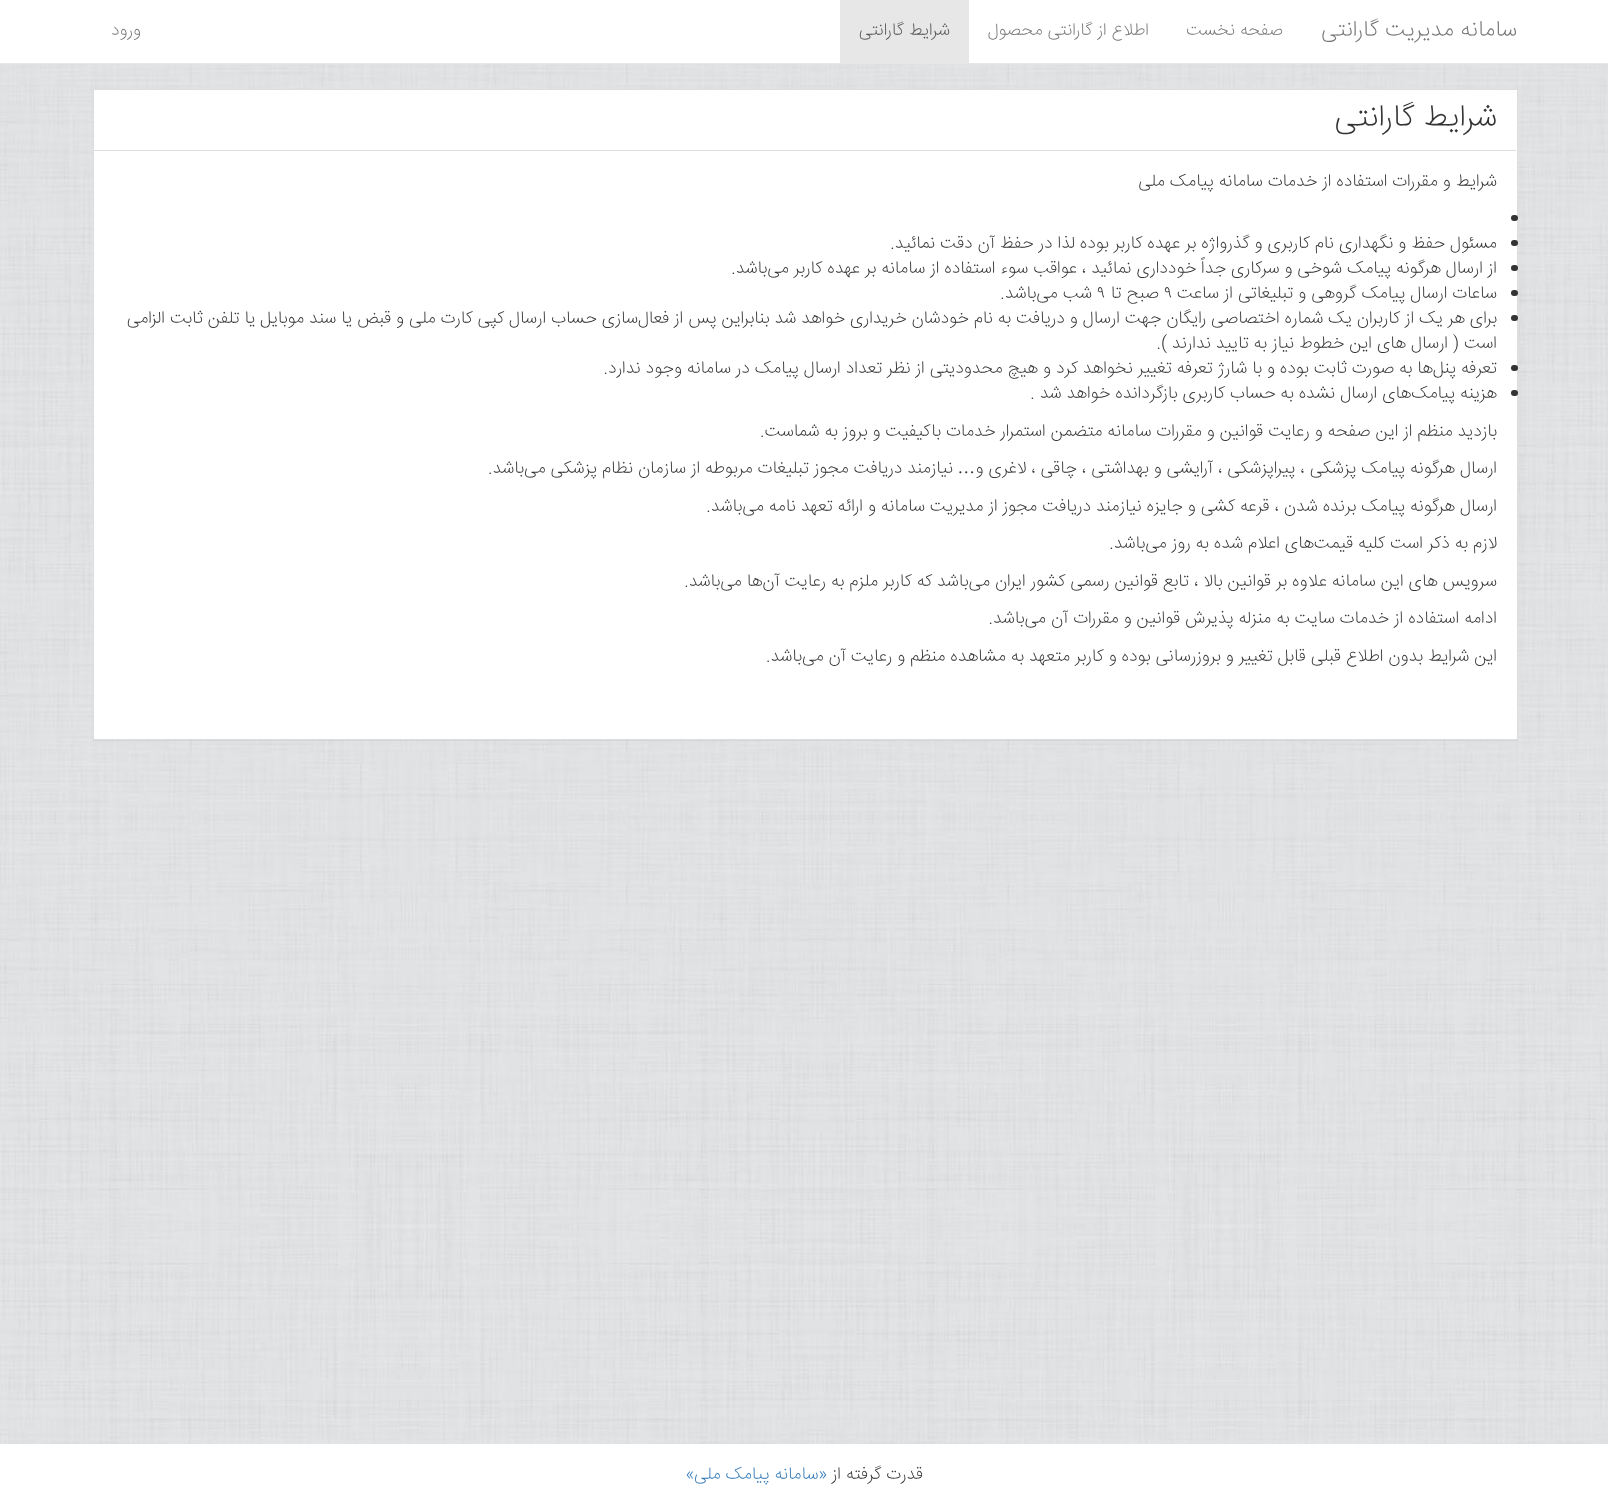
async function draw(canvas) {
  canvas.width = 1608
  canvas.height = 1506
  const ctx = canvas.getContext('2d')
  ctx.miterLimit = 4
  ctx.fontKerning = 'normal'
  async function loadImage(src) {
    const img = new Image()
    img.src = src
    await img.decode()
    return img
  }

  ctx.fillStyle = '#fff'
  ctx.fillRect(0, 0, 1608, 1506)
  ctx.drawImage(await loadImage('image0.png'), 0, 64, 1608, 1380)
  ctx.fillStyle = '#e7e7e7'
  ctx.fillRect(0, 63, 1608, 1)
  ctx.direction = 'rtl'
  ctx.font = '200 22.5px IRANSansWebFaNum'
  ctx.fillStyle = '#777'
  ctx.fillText('سامانه مدیریت گارانتی', 1517, 36)
  ctx.font = '200 17.5px IRANSansWebFaNum'
  ctx.fillText('صفحه نخست', 1283, 35)
  ctx.fillText('اطلاع از گارانتی محصول', 1149, 35)
  ctx.fillStyle = '#e7e7e7'
  ctx.fillRect(840, 0, 129, 63)
  ctx.fillStyle = '#555'
  ctx.fillText('شرایط گارانتی', 950, 35)
  ctx.fillStyle = '#777'
  ctx.fillText('ورود', 141, 35)
  ctx.fillStyle = '#0000000d'
  ctx.filter = 'blur(0.5px)'
  ctx.beginPath()
  ctx.rect(93, 90, 1425, 651)
  ctx.fill()
  ctx.filter = 'none'
  ctx.fillStyle = '#fff'
  ctx.beginPath()
  ctx.rect(93.5, 89.5, 1424, 650)
  ctx.fill()
  ctx.strokeStyle = '#ddd'
  ctx.stroke()
  ctx.fillStyle = '#ddd'
  ctx.fillRect(94, 150, 1422, 1)
  ctx.font = '200 31.25px IRANSansWebFaNum'
  ctx.fillStyle = '#333'
  ctx.fillText('شرایط گارانتی', 1497, 126)
  ctx.font = '200 17.5px IRANSansWebFaNum'
  ctx.fillText('شرایط و مقررات استفاده از خدمات سامانه پیامک ملی', 1497, 186)
  ctx.beginPath()
  ctx.roundRect(1511, 215, 7, 6, 3)
  ctx.fill()
  ctx.beginPath()
  ctx.roundRect(1511, 240, 7, 6, 3)
  ctx.fill()
  ctx.fillText('مسئول حفظ و نگهداری نام کاربری و گذرواژه بر عهده کاربر بوده لذا در حفظ آن دقت نمائید.', 1497, 248)
  ctx.beginPath()
  ctx.roundRect(1511, 265, 7, 6, 3)
  ctx.fill()
  ctx.fillText('از ارسال هرگونه پیامک شوخی و سرکاری جداً خودداری نمائید ، عواقب سوء استفاده از سامانه بر عهده کاربر می‌باشد.', 1497, 273)
  ctx.beginPath()
  ctx.roundRect(1511, 290, 7, 6, 3)
  ctx.fill()
  ctx.fillText('ساعات ارسال پیامک گروهی و تبلیغاتی از ساعت', 1497, 298)
  ctx.direction = 'ltr'
  ctx.fillText('۹', 1164, 298)
  ctx.direction = 'rtl'
  ctx.fillText('صبح تا', 1159, 298)
  ctx.direction = 'ltr'
  ctx.fillText('۹', 1097, 298)
  ctx.direction = 'rtl'
  ctx.fillText('شب می‌باشد.', 1092, 298)
  ctx.beginPath()
  ctx.roundRect(1511, 315, 7, 6, 3)
  ctx.fill()
  ctx.fillText('برای هر یک از کاربران یک شماره اختصاصی رایگان جهت ارسال و دریافت به نام خودشان خریداری خواهد شد بنابراین پس از فعال‌سازی حساب ارسال کپی کارت ملی و قبض یا سند موبایل یا تلفن ثابت الزامی', 1497, 323)
  ctx.fillText('است ( ارسال های این خطوط نیاز به تایید ندارند ).', 1497, 348)
  ctx.beginPath()
  ctx.roundRect(1511, 365, 7, 6, 3)
  ctx.fill()
  ctx.fillText('تعرفه پنل‌ها به صورت ثابت بوده و با شارژ تعرفه تغییر نخواهد کرد و هیچ محدودیتی از نظر تعداد ارسال پیامک در سامانه وجود ندارد.', 1497, 373)
  ctx.beginPath()
  ctx.roundRect(1511, 390, 7, 6, 3)
  ctx.fill()
  ctx.fillText('هزینه پیامک‌های ارسال نشده به حساب کاربری بازگردانده خواهد شد .', 1497, 398)
  ctx.fillText('بازدید منظم از این صفحه و رعایت قوانین و مقررات سامانه متضمن استمرار خدمات باکیفیت و بروز به شماست.', 1497, 436)
  ctx.fillText('ارسال هرگونه پیامک پزشکی ، پیراپزشکی ، آرایشی و بهداشتی ، چاقی ، لاغری و', 1497, 473)
  ctx.font = '17.5px Liberation Serif'
  ctx.fillText('…', 975, 473)
  ctx.font = '200 17.5px IRANSansWebFaNum'
  ctx.fillText('نیازمند دریافت مجوز تبلیغات مربوطه از سازمان نظام پزشکی می‌باشد.', 953, 473)
  ctx.fillText('ارسال هرگونه پیامک برنده شدن ، قرعه کشی و جایزه نیازمند دریافت مجوز از مدیریت سامانه و ارائه تعهد نامه می‌باشد.', 1497, 511)
  ctx.fillText('لازم به ذکر است کلیه قیمت‌های اعلام شده به روز می‌باشد.', 1497, 548)
  ctx.fillText('سرویس های این سامانه علاوه بر قوانین بالا ، تابع قوانین رسمی کشور ایران می‌باشد که کاربر ملزم به رعایت آن‌ها می‌باشد.', 1497, 586)
  ctx.fillText('ادامه استفاده از خدمات سایت به منزله پذیرش قوانین و مقررات آن می‌باشد.', 1497, 623)
  ctx.fillText('این شرایط بدون اطلاع قبلی قابل تغییر و بروزرسانی بوده و کاربر متعهد به مشاهده منظم و رعایت آن می‌باشد.', 1497, 661)
  ctx.fillText('قدرت گرفته از', 923, 1479)
  ctx.fillStyle = '#337ab7'
  ctx.fillText('«سامانه پیامک ملی»', 827, 1479)
}

draw(document.querySelector('canvas'))
